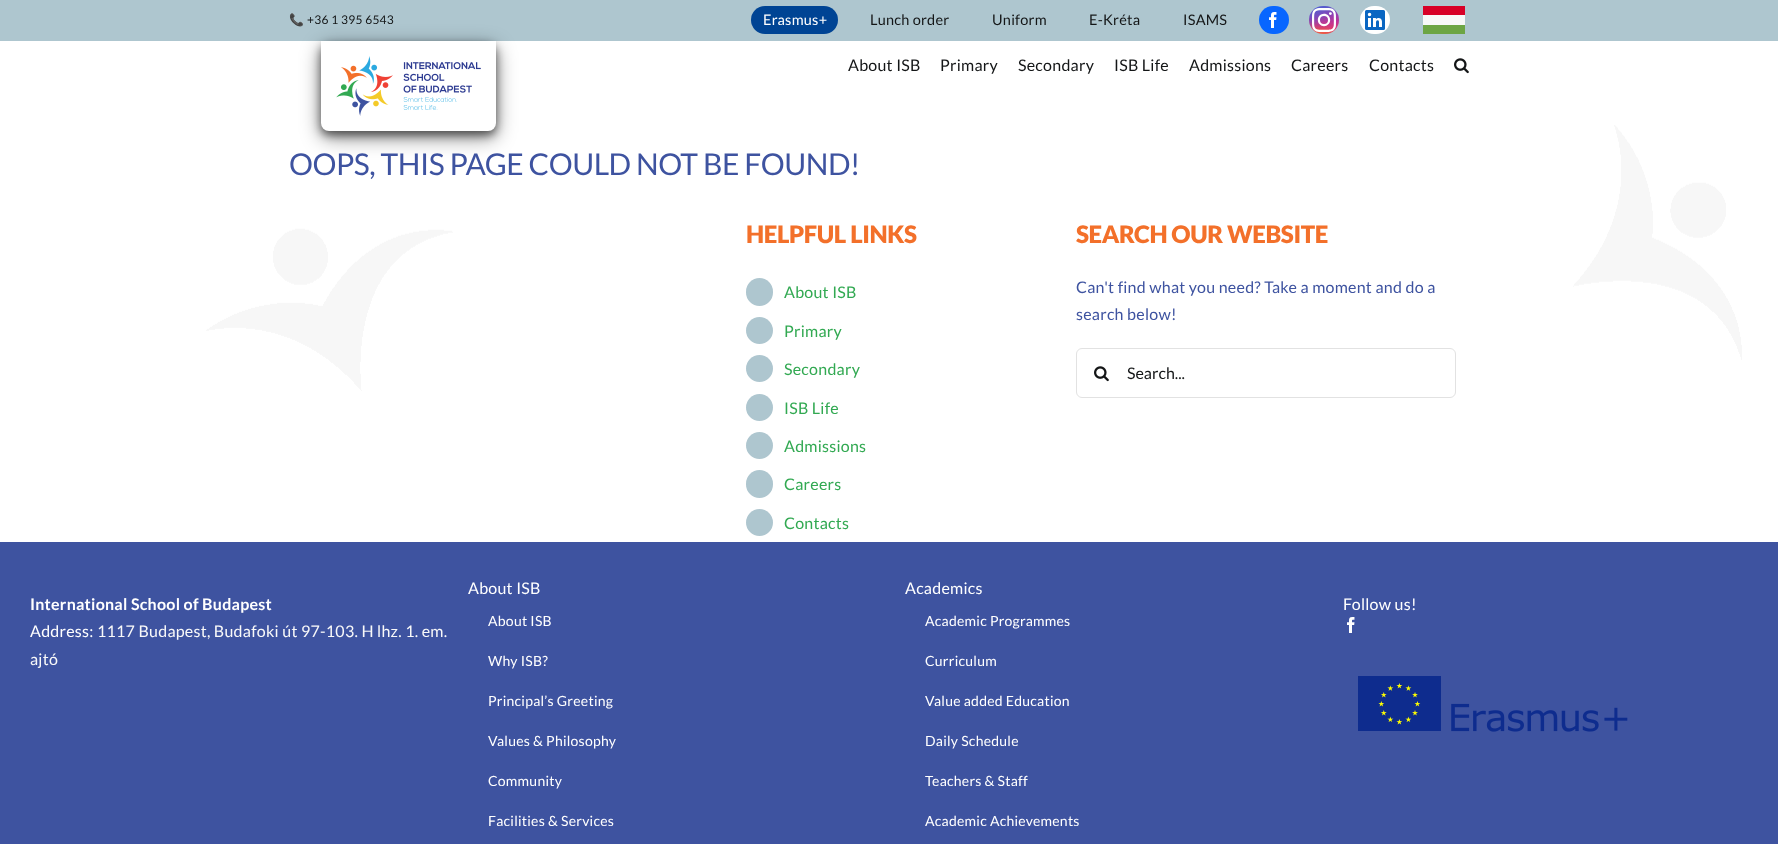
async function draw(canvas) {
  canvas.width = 1778
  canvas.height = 844
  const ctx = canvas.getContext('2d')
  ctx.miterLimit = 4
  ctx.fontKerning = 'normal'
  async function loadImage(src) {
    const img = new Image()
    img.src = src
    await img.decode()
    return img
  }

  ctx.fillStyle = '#fff'
  ctx.fillRect(0, 0, 1778, 844)
  ctx.fillStyle = '#aec6cf'
  ctx.fillRect(0, 0, 1778, 41)
  ctx.letterSpacing = '0.25px'
  ctx.font = '12px Noto Color Emoji'
  ctx.fillStyle = '#141617'
  ctx.fillText('📞', 289, 24)
  ctx.font = '12px Lato'
  ctx.fillText('+36 1 395 6543', 307, 24)
  ctx.fillStyle = '#004494'
  ctx.beginPath()
  ctx.roundRect(751, 6, 87, 28, 14)
  ctx.fill()
  ctx.font = '14.5px Lato'
  ctx.fillStyle = '#fff'
  ctx.fillText('Erasmus+', 763, 25)
  ctx.fillStyle = '#141617'
  ctx.fillText('Lunch order', 870, 25)
  ctx.fillText('Uniform', 992, 25)
  ctx.fillText('E-Kréta', 1089, 25)
  ctx.fillText('ISAMS', 1183, 25)
  ctx.fillStyle = '#0866ff'
  ctx.beginPath()
  ctx.roundRect(1259, 6, 30, 28, 14)
  ctx.fill()
  ctx.drawImage(await loadImage('image0.png'), 1269, 12, 8, 16)
  ctx.drawImage(await loadImage('image1.png'), 1309, 6, 30, 28)
  ctx.drawImage(await loadImage('image2.png'), 1312, 8, 24, 24)
  ctx.fillStyle = '#fff'
  ctx.beginPath()
  ctx.roundRect(1360, 6, 30, 28, 14)
  ctx.fill()
  ctx.drawImage(await loadImage('image3.png'), 1365, 10, 20, 20)
  ctx.fillStyle = '#d80027'
  ctx.fillRect(1423, 6, 42, 9)
  ctx.fillStyle = '#f8f8f8'
  ctx.fillRect(1423, 15, 42, 10)
  ctx.fillStyle = '#6da544'
  ctx.fillRect(1423, 25, 42, 9)
  ctx.drawImage(await loadImage('image6.png'), 206, 125, 1536, 266)
  ctx.fillStyle = '#00000080'
  ctx.filter = 'blur(10px)'
  ctx.beginPath()
  ctx.roundRect(321, 47, 175, 90, 8)
  ctx.fill()
  ctx.filter = 'none'
  ctx.filter = 'blur(4px)'
  ctx.beginPath()
  ctx.roundRect(321, 45, 175, 90, 8)
  ctx.fill()
  ctx.filter = 'none'
  ctx.fillStyle = '#fff'
  ctx.beginPath()
  ctx.roundRect(321, 41, 175, 90, [0, 0, 8, 8])
  ctx.fill()
  ctx.drawImage(await loadImage('image4.png'), 336, 56, 145, 60)
  ctx.font = '16px Lato'
  ctx.fillStyle = '#141617'
  ctx.fillText('About ISB', 848, 71)
  ctx.fillText('Primary', 940, 71)
  ctx.fillText('Secondary', 1018, 71)
  ctx.fillText('ISB Life', 1114, 71)
  ctx.fillText('Admissions', 1189, 71)
  ctx.fillText('Careers', 1291, 71)
  ctx.fillText('Contacts', 1369, 71)
  ctx.drawImage(await loadImage('image5.png'), 1454, 58, 15, 16)
  ctx.letterSpacing = '-0.45px'
  ctx.font = '30px Lato'
  ctx.fillStyle = '#3e53a0'
  ctx.fillText('OOPS, THIS PAGE COULD NOT BE FOUND!', 289, 175)
  ctx.letterSpacing = '-0.4px'
  ctx.font = '900 24px Lato'
  ctx.fillStyle = '#f3702a'
  ctx.fillText('HELPFUL LINKS', 746, 243)
  ctx.fillStyle = '#aec6cf'
  ctx.beginPath()
  ctx.roundRect(746, 278, 27, 28, 13.5)
  ctx.fill()
  ctx.letterSpacing = '0.25px'
  ctx.font = '16px Lato'
  ctx.fillStyle = '#32a952'
  ctx.fillText('About ISB', 784, 298)
  ctx.fillStyle = '#aec6cf'
  ctx.beginPath()
  ctx.arc(759.5, 330.5, 13.5, 0, 2 * Math.PI)
  ctx.fill()
  ctx.fillStyle = '#32a952'
  ctx.fillText('Primary', 784, 337)
  ctx.fillStyle = '#aec6cf'
  ctx.beginPath()
  ctx.arc(759.5, 368.5, 13.5, 0, 2 * Math.PI)
  ctx.fill()
  ctx.fillStyle = '#32a952'
  ctx.fillText('Secondary', 784, 375)
  ctx.fillStyle = '#aec6cf'
  ctx.beginPath()
  ctx.arc(759.5, 407.5, 13.5, 0, 2 * Math.PI)
  ctx.fill()
  ctx.fillStyle = '#32a952'
  ctx.fillText('ISB Life', 784, 414)
  ctx.fillStyle = '#aec6cf'
  ctx.beginPath()
  ctx.arc(759.5, 445.5, 13.5, 0, 2 * Math.PI)
  ctx.fill()
  ctx.fillStyle = '#32a952'
  ctx.fillText('Admissions', 784, 452)
  ctx.fillStyle = '#aec6cf'
  ctx.beginPath()
  ctx.roundRect(746, 470, 27, 28, 13.5)
  ctx.fill()
  ctx.fillStyle = '#32a952'
  ctx.fillText('Careers', 784, 490)
  ctx.fillStyle = '#aec6cf'
  ctx.beginPath()
  ctx.arc(759.5, 522.5, 13.5, 0, 2 * Math.PI)
  ctx.fill()
  ctx.fillStyle = '#32a952'
  ctx.fillText('Contacts', 784, 529)
  ctx.letterSpacing = '-0.4px'
  ctx.font = '900 24px Lato'
  ctx.fillStyle = '#f3702a'
  ctx.fillText('SEARCH OUR WEBSITE', 1076, 243)
  ctx.letterSpacing = '0.25px'
  ctx.font = '16px Lato'
  ctx.fillStyle = '#3e53a0'
  ctx.fillText('Can\'t find what you need? Take a moment and do a', 1076, 293)
  ctx.fillText('search below!', 1076, 320)
  ctx.beginPath()
  ctx.roundRect(1076.5, 348.5, 379, 49, 5.5)
  ctx.strokeStyle = '#e2e2e2'
  ctx.stroke()
  ctx.drawImage(await loadImage('image5.png'), 1094, 366, 15, 16)
  ctx.letterSpacing = '0px'
  ctx.fillStyle = '#141617'
  ctx.fillText('Search...', 1127, 379)
  ctx.fillStyle = '#3e53a0'
  ctx.fillRect(0, 542, 1778, 302)
  ctx.letterSpacing = '0.25px'
  ctx.font = 'bold 16px Lato'
  ctx.fillStyle = '#fff'
  ctx.fillText('International School of Budapest', 30, 610)
  ctx.font = '16px Lato'
  ctx.fillText('Address:', 30, 637)
  ctx.fillStyle = '#f9f9f9'
  ctx.fillText('1117 Budapest, Budafoki út 97-103. H lhz. 1. em.', 97, 637)
  ctx.fillText('ajtó', 30, 665)
  ctx.fillStyle = '#fff'
  ctx.fillText('About ISB', 468, 594)
  ctx.font = '14px Lato'
  ctx.fillText('About ISB', 488, 626)
  ctx.fillText('Why ISB?', 488, 666)
  ctx.fillText('Principal’s Greeting', 488, 706)
  ctx.fillText('Values & Philosophy', 488, 746)
  ctx.fillText('Community', 488, 786)
  ctx.fillText('Facilities & Services', 488, 826)
  ctx.font = '16px Lato'
  ctx.fillText('Academics', 905, 594)
  ctx.font = '14px Lato'
  ctx.fillText('Academic Programmes', 925, 626)
  ctx.fillText('Curriculum', 925, 666)
  ctx.fillText('Value added Education', 925, 706)
  ctx.fillText('Daily Schedule', 925, 746)
  ctx.fillText('Teachers & Staff', 925, 786)
  ctx.fillText('Academic Achievements', 925, 826)
  ctx.font = '16px Lato'
  ctx.fillText('Follow us!', 1343, 610)
  ctx.drawImage(await loadImage('image7.png'), 1347, 617, 8, 16)
  ctx.drawImage(await loadImage('image8.png'), 1358, 676, 270, 56)
}

draw(document.querySelector('canvas'))
